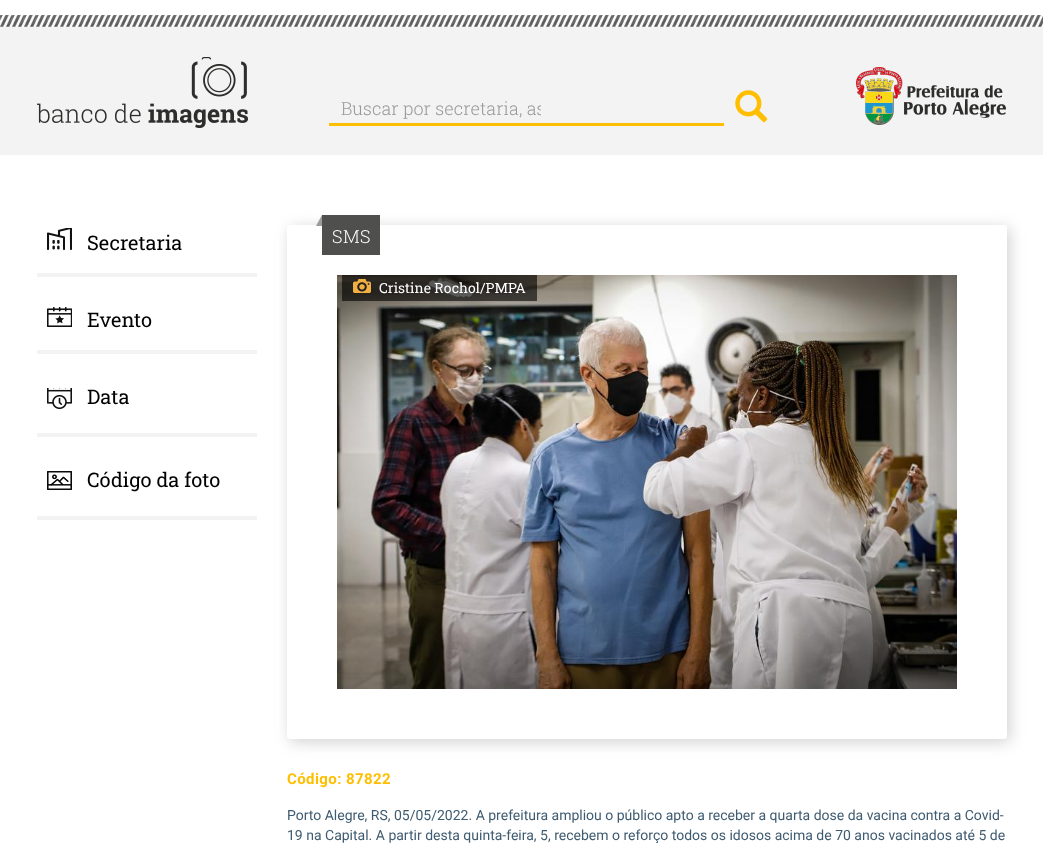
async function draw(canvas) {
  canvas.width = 1043
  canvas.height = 853
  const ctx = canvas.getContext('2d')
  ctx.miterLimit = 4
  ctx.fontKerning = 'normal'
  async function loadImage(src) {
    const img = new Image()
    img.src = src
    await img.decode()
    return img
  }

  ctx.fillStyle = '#fff'
  ctx.fillRect(0, 0, 1043, 853)
  ctx.fillStyle = '#f3f3f3'
  ctx.fillRect(0, 15, 1043, 140)
  ctx.drawImage(await loadImage('image0.png'), 0, 15, 1043, 12)
  ctx.drawImage(await loadImage('image1.png'), 37, 57, 211, 71)
  ctx.fillStyle = '#ffbf00'
  ctx.fillRect(329, 123, 395, 3)
  ctx.save()
  ctx.beginPath()
  ctx.rect(341, 96, 200, 24)
  ctx.clip()
  ctx.font = '300 18px Roboto Slab'
  ctx.fillStyle = '#999'
  ctx.fillText('Buscar por secretaria, as', 341, 115)
  ctx.restore()
  ctx.drawImage(await loadImage('image2.png'), 735, 90, 33, 33)
  ctx.drawImage(await loadImage('image3.png'), 856, 67, 150, 58)
  ctx.fillStyle = '#f3f3f3'
  ctx.fillRect(37, 273, 220, 4)
  ctx.drawImage(await loadImage('image4.png'), 47, 228, 25, 22)
  ctx.font = '20px Roboto Slab'
  ctx.fillStyle = '#000'
  ctx.fillText('Secretaria', 87, 250)
  ctx.fillStyle = '#f3f3f3'
  ctx.fillRect(37, 350, 220, 4)
  ctx.drawImage(await loadImage('image5.png'), 47, 307, 25, 20)
  ctx.fillStyle = '#000'
  ctx.fillText('Evento', 87, 327)
  ctx.fillStyle = '#f3f3f3'
  ctx.fillRect(37, 433, 220, 4)
  ctx.drawImage(await loadImage('image6.png'), 47, 388, 25, 21)
  ctx.fillStyle = '#000'
  ctx.fillText('Data', 87, 404)
  ctx.fillStyle = '#f3f3f3'
  ctx.fillRect(37, 516, 220, 4)
  ctx.drawImage(await loadImage('image7.png'), 47, 471, 25, 19)
  ctx.fillStyle = '#000'
  ctx.fillText('Código da foto', 87, 487)
  ctx.fillStyle = '#d1d1d1'
  ctx.filter = 'blur(7.5px)'
  ctx.beginPath()
  ctx.roundRect(290, 228, 720, 514, 3)
  ctx.fill()
  ctx.filter = 'none'
  ctx.fillStyle = '#fff'
  ctx.beginPath()
  ctx.roundRect(287, 225, 720, 514, 3)
  ctx.fill()
  ctx.drawImage(await loadImage('image8.png'), 337, 275, 620, 414)
  ctx.fillStyle = '#4f4f4e'
  ctx.fillRect(322, 215, 58, 40)
  ctx.drawImage(await loadImage('image9.png'), 316, 215, 6, 11)
  ctx.letterSpacing = '0.4px'
  ctx.font = '300 18px Roboto Slab'
  ctx.fillStyle = '#fff'
  ctx.fillText('SMS', 332, 243)
  ctx.fillStyle = '#00000099'
  ctx.fillRect(342, 275, 195, 26)
  ctx.drawImage(await loadImage('image10.png'), 353, 279, 18, 14)
  ctx.letterSpacing = '0px'
  ctx.font = '14px Roboto Slab'
  ctx.fillStyle = '#fff'
  ctx.fillText('Cristine Rochol/PMPA', 379, 293)
  ctx.letterSpacing = '0.4px'
  ctx.font = 'bold 15px Roboto'
  ctx.fillStyle = '#ffbf00'
  ctx.fillText('Código: 87822', 287, 784)
  ctx.letterSpacing = '0px'
  ctx.font = '14px Roboto'
  ctx.fillStyle = '#3f5b70'
  ctx.fillText('Porto Alegre, RS, 05/05/2022. A prefeitura ampliou o público apto a receber a quarta dose da vacina contra a Covid-', 287, 820)
  ctx.fillText('19 na Capital. A partir desta quinta-feira, 5, recebem o reforço todos os idosos acima de 70 anos vacinados até 5 de', 287, 840)
}

draw(document.querySelector('canvas'))
